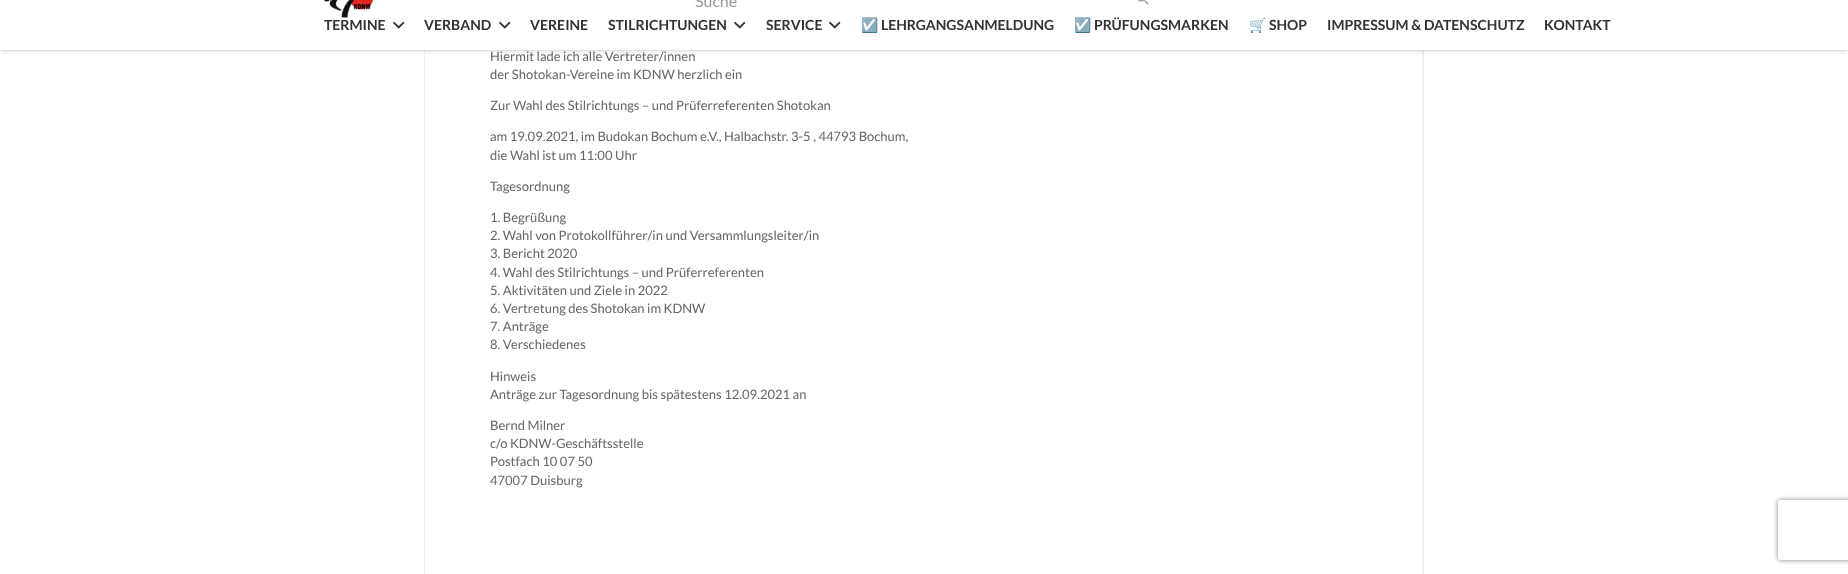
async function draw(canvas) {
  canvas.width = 1848
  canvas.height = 574
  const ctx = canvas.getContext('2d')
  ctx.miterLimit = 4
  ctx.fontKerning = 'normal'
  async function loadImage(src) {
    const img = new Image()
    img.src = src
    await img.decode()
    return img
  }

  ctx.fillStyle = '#fff'
  ctx.fillRect(0, 0, 1848, 574)
  ctx.fillStyle = '#efeeee'
  ctx.beginPath()
  ctx.moveTo(430, -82)
  ctx.lineTo(1418, -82)
  ctx.bezierCurveTo(1421, -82, 1424, -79, 1424, -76)
  ctx.lineTo(1424, 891)
  ctx.bezierCurveTo(1424, 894, 1421, 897, 1418, 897)
  ctx.lineTo(430, 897)
  ctx.bezierCurveTo(427, 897, 424, 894, 424, 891)
  ctx.lineTo(424, -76)
  ctx.bezierCurveTo(424, -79, 427, -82, 430, -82)
  ctx.closePath()
  ctx.moveTo(430, -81)
  ctx.lineTo(1418, -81)
  ctx.bezierCurveTo(1421, -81, 1423, -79, 1423, -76)
  ctx.lineTo(1423, 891)
  ctx.bezierCurveTo(1423, 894, 1421, 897, 1418, 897)
  ctx.lineTo(430, 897)
  ctx.bezierCurveTo(427, 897, 424, 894, 424, 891)
  ctx.lineTo(424, -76)
  ctx.bezierCurveTo(424, -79, 427, -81, 430, -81)
  ctx.closePath()
  ctx.fill('evenodd')
  ctx.fillStyle = '#f1f1f1'
  ctx.beginPath()
  ctx.moveTo(1422, -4)
  ctx.lineTo(1422, 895)
  ctx.lineTo(1423, 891)
  ctx.lineTo(1423, -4)
  ctx.closePath()
  ctx.fill()
  ctx.beginPath()
  ctx.moveTo(424, -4)
  ctx.lineTo(424, 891)
  ctx.lineTo(425, 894)
  ctx.lineTo(425, -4)
  ctx.closePath()
  ctx.fill()
  ctx.fillStyle = '#0000000d'
  ctx.filter = 'blur(0.5px)'
  ctx.beginPath()
  ctx.rect(1, 3, 1846, 48)
  ctx.fill()
  ctx.filter = 'none'
  ctx.fillStyle = '#0000001a'
  ctx.filter = 'blur(2.5px)'
  ctx.beginPath()
  ctx.rect(1, 4, 1846, 48)
  ctx.fill()
  ctx.filter = 'none'
  ctx.fillStyle = '#fff'
  ctx.fillRect(0, 0, 1848, 50)
  ctx.drawImage(await loadImage('image0.png'), 324, 0, 50, 18)
  ctx.font = '16px Lato'
  ctx.fillStyle = '#989999'
  ctx.fillText('Suche', 695, 7)
  ctx.drawImage(await loadImage('image1.png'), 1138, 0, 11, 5)
  ctx.font = 'bold 14px Lato'
  ctx.fillStyle = '#313233'
  ctx.fillText('TERMINE', 324, 30)
  ctx.drawImage(await loadImage('image2.png'), 393, 21, 12, 8)
  ctx.fillText('VERBAND', 424, 30)
  ctx.drawImage(await loadImage('image2.png'), 499, 21, 12, 8)
  ctx.fillText('VEREINE', 530, 30)
  ctx.fillText('STILRICHTUNGEN', 608, 30)
  ctx.drawImage(await loadImage('image2.png'), 734, 21, 12, 8)
  ctx.fillText('SERVICE', 766, 30)
  ctx.drawImage(await loadImage('image2.png'), 829, 21, 12, 8)
  ctx.font = 'bold 14px Noto Color Emoji'
  ctx.fillText('☑️', 861, 30)
  ctx.font = 'bold 14px Lato'
  ctx.fillText('LEHRGANGSANMELDUNG', 881, 30)
  ctx.font = 'bold 14px Noto Color Emoji'
  ctx.fillText('☑️', 1074, 30)
  ctx.font = 'bold 14px Lato'
  ctx.fillText('PRÜFUNGSMARKEN', 1094, 30)
  ctx.font = 'bold 14px Noto Color Emoji'
  ctx.fillText('🛒', 1249, 30)
  ctx.font = 'bold 14px Lato'
  ctx.fillText('SHOP', 1269, 30)
  ctx.fillText('IMPRESSUM & DATENSCHUTZ', 1327, 30)
  ctx.fillText('KONTAKT', 1544, 30)
  ctx.font = '13px Lato'
  ctx.fillStyle = '#656565'
  ctx.fillText('Hiermit lade ich alle Vertreter/innen', 490, 61)
  ctx.fillText('der Shotokan-Vereine im KDNW herzlich ein', 490, 79)
  ctx.fillText('Zur Wahl des Stilrichtungs – und Prüferreferenten Shotokan', 490, 110)
  ctx.fillText('am 19.09.2021, im Budokan Bochum e.V., Halbachstr. 3-5 , 44793 Bochum,', 490, 141)
  ctx.fillText('die Wahl ist um 11:00 Uhr', 490, 160)
  ctx.fillText('Tagesordnung', 490, 191)
  ctx.fillText('1. Begrüßung', 490, 222)
  ctx.fillText('2. Wahl von Protokollführer/in und Versammlungsleiter/in', 490, 240)
  ctx.fillText('3. Bericht 2020', 490, 258)
  ctx.fillText('4. Wahl des Stilrichtungs – und Prüferreferenten', 490, 277)
  ctx.fillText('5. Aktivitäten und Ziele in 2022', 490, 295)
  ctx.fillText('6. Vertretung des Shotokan im KDNW', 490, 313)
  ctx.fillText('7. Anträge', 490, 331)
  ctx.fillText('8. Verschiedenes', 490, 349)
  ctx.fillText('Hinweis', 490, 381)
  ctx.fillText('Anträge zur Tagesordnung bis spätestens 12.09.2021 an', 490, 399)
  ctx.fillText('Bernd Milner', 490, 430)
  ctx.fillText('c/o KDNW-Geschäftsstelle', 490, 448)
  ctx.fillText('Postfach 10 07 50', 490, 466)
  ctx.fillText('47007 Duisburg', 490, 485)
  ctx.save()
  ctx.beginPath()
  ctx.moveTo(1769, 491)
  ctx.lineTo(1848, 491)
  ctx.lineTo(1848, 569)
  ctx.lineTo(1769, 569)
  ctx.closePath()
  ctx.moveTo(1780, 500)
  ctx.lineTo(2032, 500)
  ctx.bezierCurveTo(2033, 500, 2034, 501, 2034, 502)
  ctx.lineTo(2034, 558)
  ctx.bezierCurveTo(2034, 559, 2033, 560, 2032, 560)
  ctx.lineTo(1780, 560)
  ctx.bezierCurveTo(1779, 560, 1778, 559, 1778, 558)
  ctx.lineTo(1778, 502)
  ctx.bezierCurveTo(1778, 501, 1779, 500, 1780, 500)
  ctx.closePath()
  ctx.clip('evenodd')
  ctx.fillStyle = '#808080'
  ctx.filter = 'blur(2.5px)'
  ctx.beginPath()
  ctx.roundRect(1778, 500, 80, 60, 2)
  ctx.fill()
  ctx.filter = 'none'
  ctx.restore()
}

draw(document.querySelector('canvas'))
